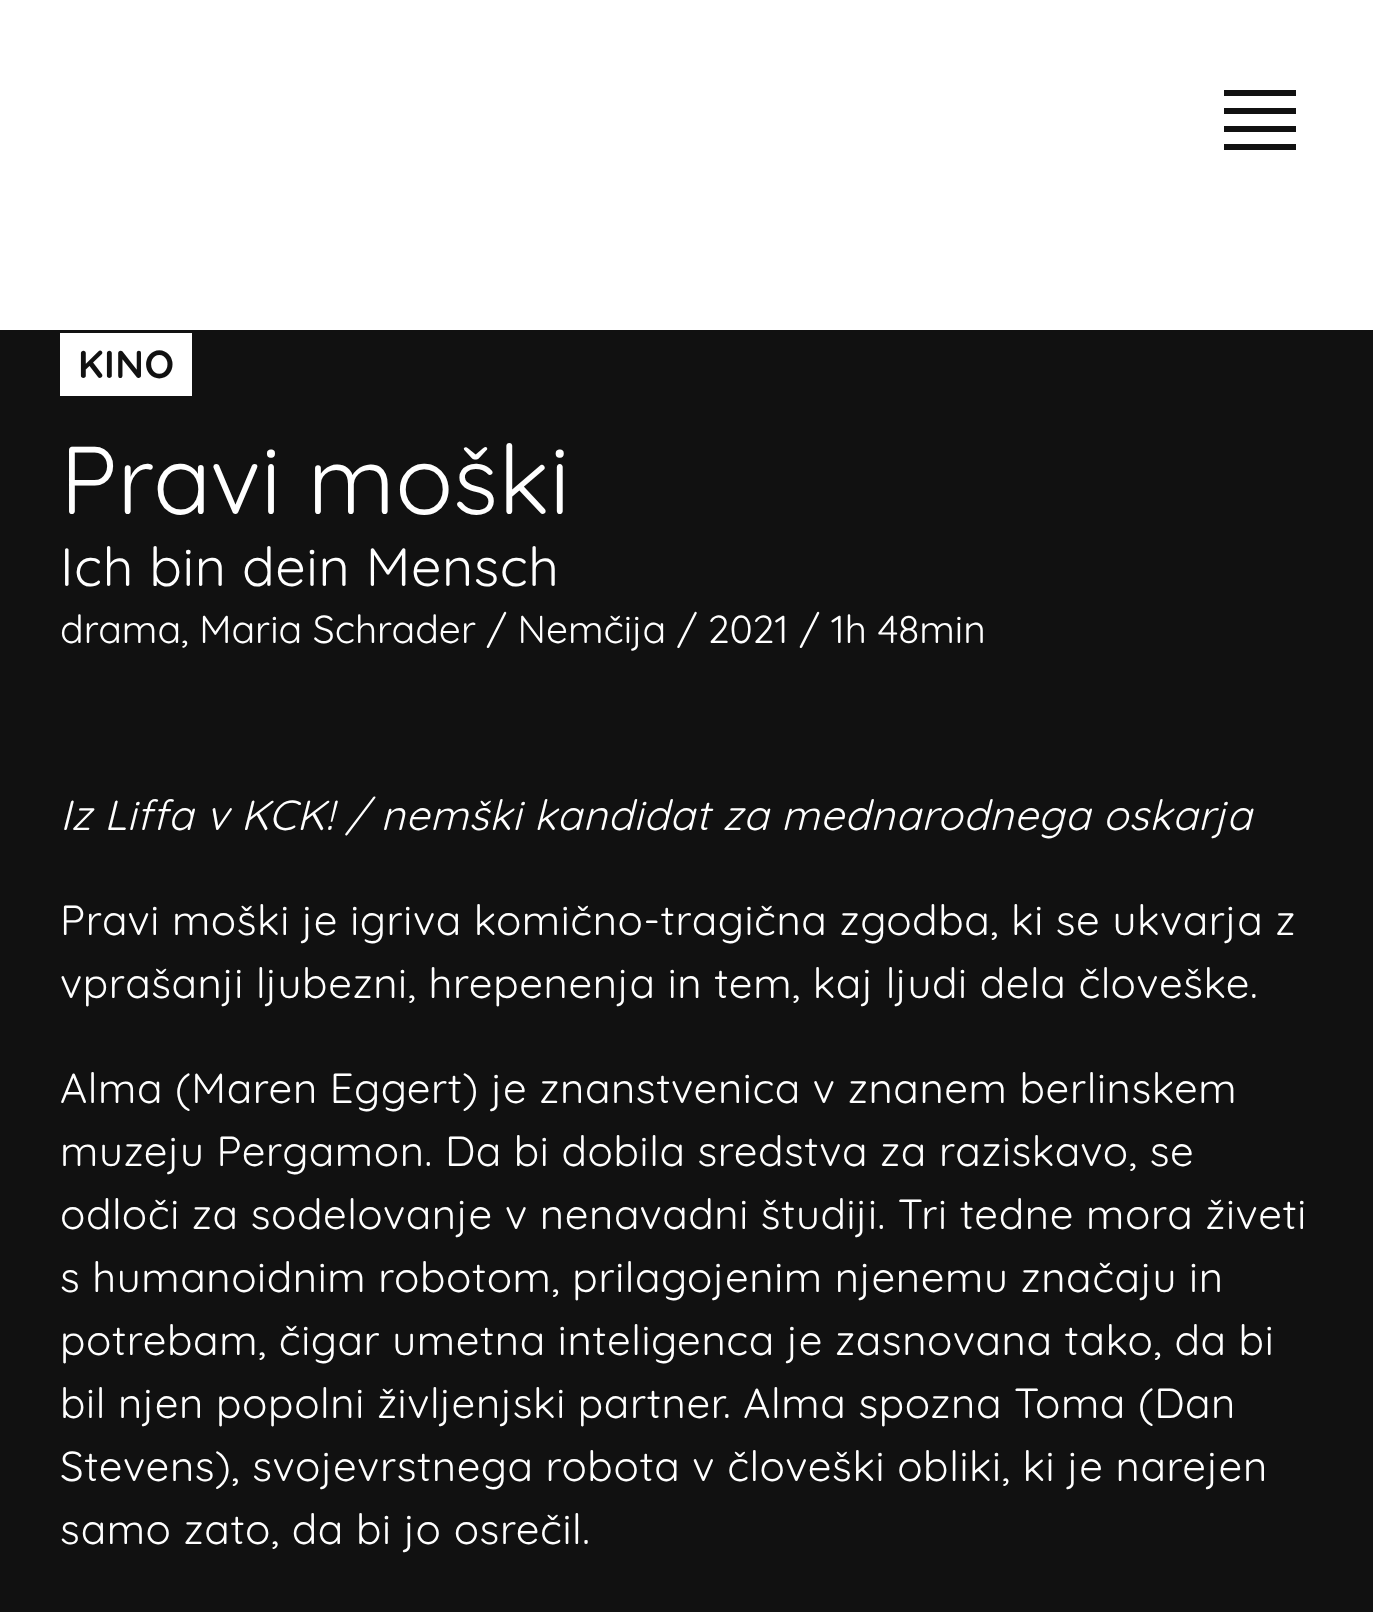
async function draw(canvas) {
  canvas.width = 1373
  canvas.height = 1612
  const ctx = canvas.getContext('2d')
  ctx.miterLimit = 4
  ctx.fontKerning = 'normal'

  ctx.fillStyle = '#111'
  ctx.fillRect(0, 0, 1373, 1612)
  ctx.fillStyle = '#fff'
  ctx.fillRect(0, 0, 1373, 330)
  ctx.fillStyle = '#111'
  ctx.fillRect(1224, 90, 72, 6)
  ctx.fillRect(1224, 108, 72, 6)
  ctx.fillRect(1224, 126, 72, 6)
  ctx.fillRect(1224, 144, 72, 6)
  ctx.fillStyle = '#fff'
  ctx.fillRect(60, 333, 132, 63)
  ctx.letterSpacing = '0.5px'
  ctx.font = '300 39px Quicksand'
  ctx.fillStyle = '#111'
  ctx.fillText('KINO', 78, 378)
  ctx.letterSpacing = '0px'
  ctx.font = '300 96px "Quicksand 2"'
  ctx.fillStyle = '#fff'
  ctx.fillText('Pravi moški', 60, 514)
  ctx.letterSpacing = '0.6px'
  ctx.font = '300 54px "Quicksand 2"'
  ctx.fillText('Ich bin dein Mensch', 60, 586)
  ctx.letterSpacing = '0px'
  ctx.font = '300 39px "Quicksand 2"'
  ctx.fillText('drama, Maria Schrader / Nemčija / 2021 / 1h 48min', 60, 643)
  ctx.letterSpacing = '0.6px'
  ctx.font = 'italic 300 42px Quicksand'
  ctx.fillText('Iz Liffa v KCK! / nemški kandidat za mednarodnega oskarja', 60, 830)
  ctx.font = '300 42px "Quicksand 2"'
  ctx.fillText('Pravi moški je igriva komično-tragična zgodba, ki se ukvarja z', 60, 935)
  ctx.fillText('vprašanji ljubezni, hrepenenja in tem, kaj ljudi dela človeške.', 60, 998)
  ctx.fillText('Alma (Maren Eggert) je znanstvenica v znanem berlinskem', 60, 1103)
  ctx.fillText('muzeju Pergamon. Da bi dobila sredstva za raziskavo, se', 60, 1166)
  ctx.fillText('odloči za sodelovanje v nenavadni študiji. Tri tedne mora živeti', 60, 1229)
  ctx.fillText('s humanoidnim robotom, prilagojenim njenemu značaju in', 60, 1292)
  ctx.fillText('potrebam, čigar umetna inteligenca je zasnovana tako, da bi', 60, 1355)
  ctx.fillText('bil njen popolni življenjski partner. Alma spozna Toma (Dan', 60, 1418)
  ctx.fillText('Stevens), svojevrstnega robota v človeški obliki, ki je narejen', 60, 1481)
  ctx.fillText('samo zato, da bi jo osrečil.', 60, 1544)
}

draw(document.querySelector('canvas'))
